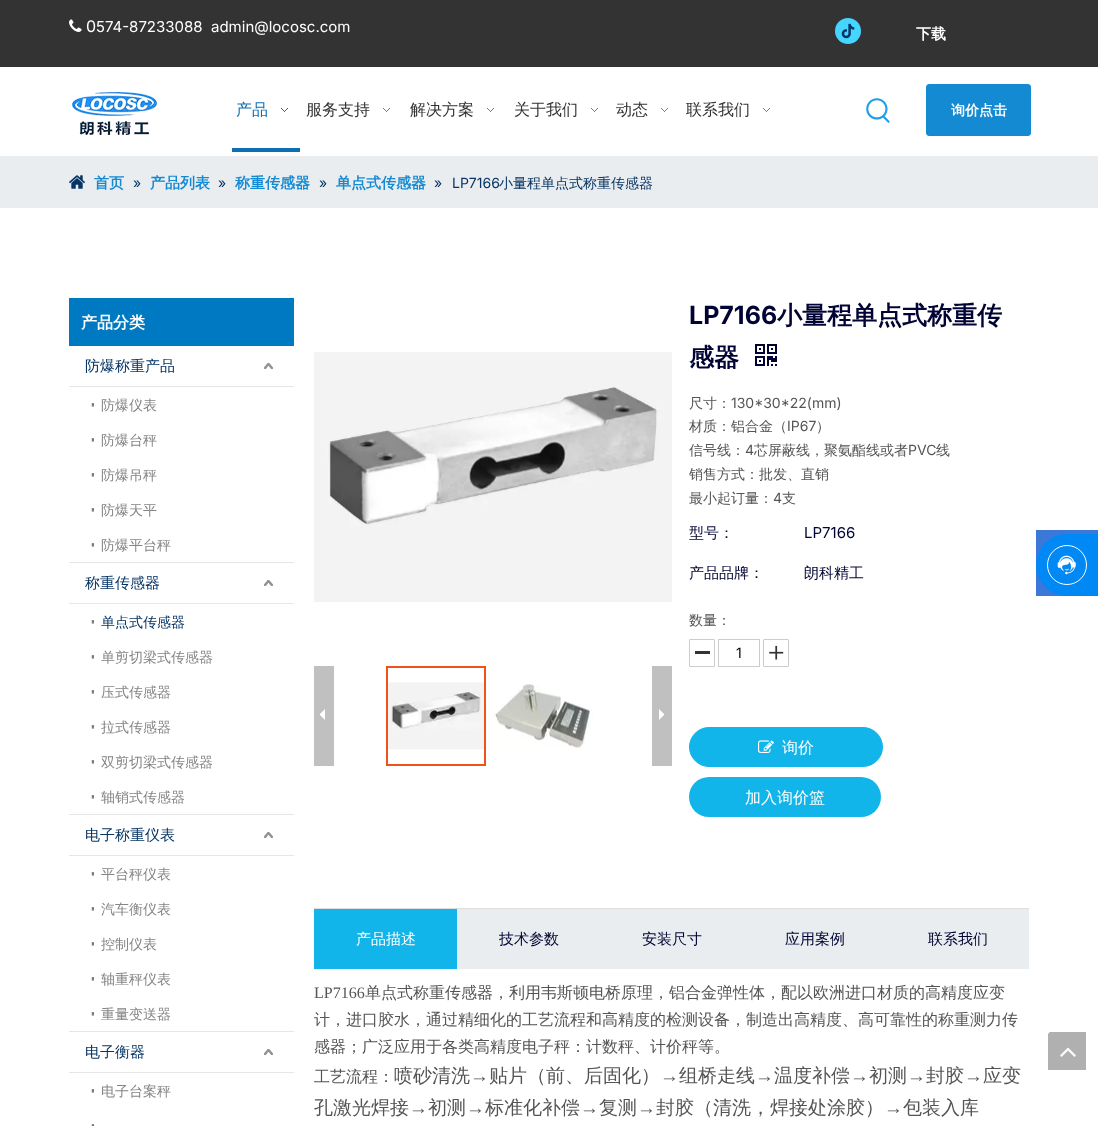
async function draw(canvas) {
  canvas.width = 1098
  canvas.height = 1126
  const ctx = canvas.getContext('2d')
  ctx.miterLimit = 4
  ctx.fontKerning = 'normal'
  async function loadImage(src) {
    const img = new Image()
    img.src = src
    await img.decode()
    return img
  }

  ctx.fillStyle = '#fff'
  ctx.fillRect(0, 0, 1098, 1126)
  ctx.fillStyle = '#333'
  ctx.fillRect(0, 0, 1098, 67)
  ctx.drawImage(await loadImage('image0.png'), 69, 19, 13, 13)
  ctx.font = '16px Inter'
  ctx.fillStyle = '#fff'
  ctx.fillText('0', 86, 32)
  ctx.font = '15px Inter'
  ctx.fillText('574-87233088', 96, 32)
  ctx.fillText('admin@locosc.com', 211, 32)
  ctx.fillStyle = '#44d6fe'
  ctx.beginPath()
  ctx.arc(848, 31, 13, 0, 2 * Math.PI)
  ctx.fill()
  ctx.drawImage(await loadImage('image1.png'), 841, 23, 14, 16)
  ctx.font = 'bold 15px WenQuanYi Zen Hei'
  ctx.fillStyle = '#fff'
  ctx.fillText('下载', 916, 39)
  ctx.drawImage(await loadImage('image2.png'), 72, 92, 85, 43)
  ctx.fillStyle = '#0c6fb3'
  ctx.fillRect(232, 148, 68, 4)
  ctx.font = '500 16px WenQuanYi Zen Hei'
  ctx.fillText('产品', 236, 115)
  ctx.drawImage(await loadImage('image3.png'), 281, 108, 7, 4)
  ctx.fillStyle = '#333'
  ctx.fillText('服务支持', 306, 115)
  ctx.drawImage(await loadImage('image4.png'), 383, 108, 7, 4)
  ctx.fillText('解决方案', 410, 115)
  ctx.drawImage(await loadImage('image4.png'), 487, 108, 7, 4)
  ctx.fillText('关于我们', 514, 115)
  ctx.drawImage(await loadImage('image4.png'), 591, 108, 7, 4)
  ctx.fillText('动态', 616, 115)
  ctx.drawImage(await loadImage('image4.png'), 661, 108, 7, 4)
  ctx.fillText('联系我们', 686, 115)
  ctx.drawImage(await loadImage('image4.png'), 763, 108, 7, 4)
  ctx.drawImage(await loadImage('image5.png'), 866, 98, 24, 25)
  ctx.fillStyle = '#148ad2'
  ctx.beginPath()
  ctx.roundRect(926.5, 84.5, 104, 51, 2.5)
  ctx.fill()
  ctx.strokeStyle = '#148ad2'
  ctx.stroke()
  ctx.font = 'bold 14px WenQuanYi Zen Hei'
  ctx.fillStyle = '#fff'
  ctx.fillText('询价点击', 951, 115)
  ctx.fillStyle = '#eaedef'
  ctx.fillRect(0, 156, 1098, 52)
  ctx.drawImage(await loadImage('image6.png'), 69, 175, 16, 14)
  ctx.font = 'bold 15px WenQuanYi Zen Hei'
  ctx.fillStyle = '#148ad2'
  ctx.fillText('首页', 94, 188)
  ctx.font = '14px Inter'
  ctx.fillStyle = '#063464'
  ctx.fillText('»', 133, 188)
  ctx.font = 'bold 15px WenQuanYi Zen Hei'
  ctx.fillStyle = '#148ad2'
  ctx.fillText('产品列表', 150, 188)
  ctx.font = '14px Inter'
  ctx.fillStyle = '#063464'
  ctx.fillText('»', 218, 188)
  ctx.font = 'bold 15px WenQuanYi Zen Hei'
  ctx.fillStyle = '#148ad2'
  ctx.fillText('称重传感器', 235, 188)
  ctx.font = '14px Inter'
  ctx.fillStyle = '#063464'
  ctx.fillText('»', 319, 188)
  ctx.font = 'bold 15px WenQuanYi Zen Hei'
  ctx.fillStyle = '#148ad2'
  ctx.fillText('单点式传感器', 336, 188)
  ctx.font = '14px Inter'
  ctx.fillStyle = '#063464'
  ctx.fillText('»', 434, 188)
  ctx.fillText('LP7166', 452, 188)
  ctx.font = '500 14px WenQuanYi Zen Hei'
  ctx.fillText('小量程单点式称重传感器', 499, 188)
  ctx.fillStyle = '#0079c3'
  ctx.fillRect(69, 298, 225, 48)
  ctx.font = 'bold 16px WenQuanYi Zen Hei'
  ctx.fillStyle = '#fff'
  ctx.fillText('产品分类', 81, 328)
  ctx.fillStyle = '#e7e7e7'
  ctx.fillRect(69, 386, 225, 1)
  ctx.font = '500 15px WenQuanYi Zen Hei'
  ctx.fillStyle = '#063464'
  ctx.fillText('防爆称重产品', 85, 371)
  ctx.drawImage(await loadImage('image7.png'), 264, 363, 9, 6)
  ctx.drawImage(await loadImage('image8.png'), 91, 403, 3, 4)
  ctx.font = '500 14px WenQuanYi Zen Hei'
  ctx.fillStyle = '#868585'
  ctx.fillText('防爆仪表', 101, 410)
  ctx.drawImage(await loadImage('image8.png'), 91, 438, 3, 4)
  ctx.fillText('防爆台秤', 101, 445)
  ctx.drawImage(await loadImage('image8.png'), 91, 473, 3, 4)
  ctx.fillText('防爆吊秤', 101, 480)
  ctx.drawImage(await loadImage('image8.png'), 91, 508, 3, 4)
  ctx.fillText('防爆天平', 101, 515)
  ctx.drawImage(await loadImage('image8.png'), 91, 543, 3, 4)
  ctx.fillText('防爆平台秤', 101, 550)
  ctx.fillStyle = '#e7e7e7'
  ctx.fillRect(69, 562, 225, 1)
  ctx.fillRect(69, 603, 225, 1)
  ctx.font = '500 15px WenQuanYi Zen Hei'
  ctx.fillStyle = '#063464'
  ctx.fillText('称重传感器', 85, 588)
  ctx.drawImage(await loadImage('image7.png'), 264, 580, 9, 6)
  ctx.drawImage(await loadImage('image8.png'), 91, 620, 3, 4)
  ctx.font = '500 14px WenQuanYi Zen Hei'
  ctx.fillText('单点式传感器', 101, 627)
  ctx.drawImage(await loadImage('image8.png'), 91, 655, 3, 4)
  ctx.fillStyle = '#868585'
  ctx.fillText('单剪切梁式传感器', 101, 662)
  ctx.drawImage(await loadImage('image8.png'), 91, 690, 3, 4)
  ctx.fillText('压式传感器', 101, 697)
  ctx.drawImage(await loadImage('image8.png'), 91, 725, 3, 4)
  ctx.fillText('拉式传感器', 101, 732)
  ctx.drawImage(await loadImage('image8.png'), 91, 760, 3, 4)
  ctx.fillText('双剪切梁式传感器', 101, 767)
  ctx.drawImage(await loadImage('image8.png'), 91, 795, 3, 4)
  ctx.fillText('轴销式传感器', 101, 802)
  ctx.fillStyle = '#e7e7e7'
  ctx.fillRect(69, 814, 225, 1)
  ctx.fillRect(69, 855, 225, 1)
  ctx.font = '500 15px WenQuanYi Zen Hei'
  ctx.fillStyle = '#063464'
  ctx.fillText('电子称重仪表', 85, 840)
  ctx.drawImage(await loadImage('image7.png'), 264, 832, 9, 6)
  ctx.drawImage(await loadImage('image8.png'), 91, 872, 3, 4)
  ctx.font = '500 14px WenQuanYi Zen Hei'
  ctx.fillStyle = '#868585'
  ctx.fillText('平台秤仪表', 101, 879)
  ctx.drawImage(await loadImage('image8.png'), 91, 907, 3, 4)
  ctx.fillText('汽车衡仪表', 101, 914)
  ctx.drawImage(await loadImage('image8.png'), 91, 942, 3, 4)
  ctx.fillText('控制仪表', 101, 949)
  ctx.drawImage(await loadImage('image8.png'), 91, 977, 3, 4)
  ctx.fillText('轴重秤仪表', 101, 984)
  ctx.drawImage(await loadImage('image8.png'), 91, 1012, 3, 4)
  ctx.fillText('重量变送器', 101, 1019)
  ctx.fillStyle = '#e7e7e7'
  ctx.fillRect(69, 1031, 225, 1)
  ctx.fillRect(69, 1072, 225, 1)
  ctx.font = '500 15px WenQuanYi Zen Hei'
  ctx.fillStyle = '#063464'
  ctx.fillText('电子衡器', 85, 1057)
  ctx.drawImage(await loadImage('image7.png'), 264, 1049, 9, 6)
  ctx.drawImage(await loadImage('image8.png'), 91, 1089, 3, 4)
  ctx.font = '500 14px WenQuanYi Zen Hei'
  ctx.fillStyle = '#868585'
  ctx.fillText('电子台案秤', 101, 1096)
  ctx.drawImage(await loadImage('image9.png'), 91, 1124, 3, 2)
  ctx.drawImage(await loadImage('image10.png'), 314, 352, 358, 250)
  ctx.fillStyle = '#c0c0c0'
  ctx.fillRect(314, 666, 20, 100)
  ctx.fillStyle = '#fff'
  ctx.beginPath()
  ctx.moveTo(325, 709)
  ctx.lineTo(325, 720)
  ctx.lineTo(320, 715)
  ctx.lineTo(320, 714)
  ctx.closePath()
  ctx.fill()
  ctx.strokeStyle = '#ee531b'
  ctx.lineWidth = 2
  ctx.strokeRect(387, 667, 98, 98)
  ctx.drawImage(await loadImage('image11.png'), 388, 682, 96, 68)
  ctx.drawImage(await loadImage('image12.png'), 493, 684, 100, 65)
  ctx.drawImage(await loadImage('image13.png'), 495, 684, 95, 64)
  ctx.fillStyle = '#c0c0c0'
  ctx.fillRect(652, 666, 20, 100)
  ctx.fillStyle = '#fff'
  ctx.beginPath()
  ctx.moveTo(659, 720)
  ctx.lineTo(659, 709)
  ctx.lineTo(664, 714)
  ctx.lineTo(664, 715)
  ctx.closePath()
  ctx.fill()
  ctx.font = 'bold 25px Inter'
  ctx.fillStyle = '#000333'
  ctx.fillText('LP7166', 689, 324)
  ctx.font = 'bold 25px WenQuanYi Zen Hei'
  ctx.fillText('小量程单点式称重传', 777, 324)
  ctx.fillText('感器', 689, 366)
  ctx.drawImage(await loadImage('image14.png'), 755, 344, 22, 22)
  ctx.font = '500 14px WenQuanYi Zen Hei'
  ctx.fillStyle = '#545454'
  ctx.fillText('尺寸：', 689, 408)
  ctx.font = '14px Inter'
  ctx.fillText('130*30*22(mm)', 731, 408)
  ctx.font = '500 14px WenQuanYi Zen Hei'
  ctx.fillText('材质：铝合金（', 689, 431)
  ctx.font = '14px Inter'
  ctx.fillText('IP67', 787, 431)
  ctx.font = '500 14px WenQuanYi Zen Hei'
  ctx.fillText('）', 816, 431)
  ctx.fillText('信号线：', 689, 455)
  ctx.font = '14px Inter'
  ctx.fillText('4', 745, 455)
  ctx.font = '500 14px WenQuanYi Zen Hei'
  ctx.fillText('芯屏蔽线，聚氨酯线或者', 754, 455)
  ctx.font = '14px Inter'
  ctx.fillText('PVC', 908, 455)
  ctx.font = '500 14px WenQuanYi Zen Hei'
  ctx.fillText('线', 936, 455)
  ctx.fillText('销售方式：批发、直销', 689, 479)
  ctx.fillText('最小起订量：', 689, 503)
  ctx.font = '14px Inter'
  ctx.fillText('4', 773, 503)
  ctx.font = '500 14px WenQuanYi Zen Hei'
  ctx.fillText('支', 782, 503)
  ctx.font = '500 15px WenQuanYi Zen Hei'
  ctx.fillStyle = '#000333'
  ctx.fillText('型号：', 689, 538)
  ctx.font = '15px Inter'
  ctx.fillText('LP7166', 804, 538)
  ctx.font = '500 15px WenQuanYi Zen Hei'
  ctx.fillText('产品品牌：', 689, 578)
  ctx.fillText('朗科精工', 804, 578)
  ctx.font = '500 14px WenQuanYi Zen Hei'
  ctx.fillStyle = '#545454'
  ctx.fillText('数量：', 689, 625)
  ctx.fillStyle = '#333'
  ctx.fillRect(695, 651, 15, 3)
  ctx.beginPath()
  ctx.roundRect(689.5, 639.5, 25, 27, 0.5)
  ctx.strokeStyle = '#ccc'
  ctx.lineWidth = 1
  ctx.stroke()
  ctx.strokeRect(718.5, 639.5, 41, 27)
  ctx.font = '14px Inter'
  ctx.fillStyle = '#000'
  ctx.fillText('1', 736, 658)
  ctx.drawImage(await loadImage('image15.png'), 769, 645, 15, 15)
  ctx.beginPath()
  ctx.roundRect(763.5, 639.5, 25, 27, 0.5)
  ctx.stroke()
  ctx.fillStyle = '#12b5ea'
  ctx.beginPath()
  ctx.roundRect(689.5, 727.5, 193, 39, 19.5)
  ctx.fill()
  ctx.strokeStyle = '#12b5ea'
  ctx.stroke()
  ctx.drawImage(await loadImage('image16.png'), 758, 740, 16, 13)
  ctx.font = '500 16px WenQuanYi Zen Hei'
  ctx.fillStyle = '#fff'
  ctx.fillText('询价', 782, 753)
  ctx.fillStyle = '#12b5ea'
  ctx.beginPath()
  ctx.roundRect(689, 777, 192, 40, 20)
  ctx.fill()
  ctx.fillStyle = '#fff'
  ctx.fillText('加入询价篮', 745, 803)
  ctx.fillStyle = '#dfdfdf'
  ctx.fillRect(314, 908, 715, 1)
  ctx.fillStyle = '#eaedef'
  ctx.fillRect(457, 909, 572, 60)
  ctx.fillStyle = '#12b5ea'
  ctx.fillRect(314, 909, 143, 60)
  ctx.font = '500 15px WenQuanYi Zen Hei'
  ctx.fillStyle = '#fff'
  ctx.fillText('产品描述', 356, 944)
  ctx.fillStyle = '#000333'
  ctx.fillText('技术参数', 499, 944)
  ctx.fillText('安装尺寸', 642, 944)
  ctx.fillText('应用案例', 785, 944)
  ctx.fillText('联系我们', 928, 944)
  ctx.font = '16px Liberation Serif'
  ctx.fillStyle = '#545454'
  ctx.fillText('LP7166', 314, 998)
  ctx.font = '500 16px WenQuanYi Zen Hei'
  ctx.fillText('单点式称重传感器，利用韦斯顿电桥原理，铝合金弹性体，配以欧洲进口材质的高精度应变', 365, 998)
  ctx.fillText('计，进口胶水，通过精细化的工艺流程和高精度的检测设备，制造出高精度、高可靠性的称重测力传', 314, 1025)
  ctx.fillText('感器；广泛应用于各类高精度电子秤：计数秤、计价秤等。', 314, 1052)
  ctx.fillText('工艺流程：', 314, 1082)
  ctx.font = '500 19px WenQuanYi Zen Hei'
  ctx.fillText('喷砂清洗', 394, 1082)
  ctx.font = '19px Liberation Serif'
  ctx.fillText('→', 470, 1082)
  ctx.font = '500 19px WenQuanYi Zen Hei'
  ctx.fillText('贴片（前、后固化）', 489, 1082)
  ctx.font = '19px Liberation Serif'
  ctx.fillText('→', 660, 1082)
  ctx.font = '500 19px WenQuanYi Zen Hei'
  ctx.fillText('组桥走线', 679, 1082)
  ctx.font = '19px Liberation Serif'
  ctx.fillText('→', 755, 1082)
  ctx.font = '500 19px WenQuanYi Zen Hei'
  ctx.fillText('温度补偿', 774, 1082)
  ctx.font = '19px Liberation Serif'
  ctx.fillText('→', 850, 1082)
  ctx.font = '500 19px WenQuanYi Zen Hei'
  ctx.fillText('初测', 869, 1082)
  ctx.font = '19px Liberation Serif'
  ctx.fillText('→', 907, 1082)
  ctx.font = '500 19px WenQuanYi Zen Hei'
  ctx.fillText('封胶', 926, 1082)
  ctx.font = '19px Liberation Serif'
  ctx.fillText('→', 964, 1082)
  ctx.font = '500 19px WenQuanYi Zen Hei'
  ctx.fillText('应变', 983, 1082)
  ctx.fillText('孔激光焊接', 314, 1114)
  ctx.font = '19px Liberation Serif'
  ctx.fillText('→', 409, 1114)
  ctx.font = '500 19px WenQuanYi Zen Hei'
  ctx.fillText('初测', 428, 1114)
  ctx.font = '19px Liberation Serif'
  ctx.fillText('→', 466, 1114)
  ctx.font = '500 19px WenQuanYi Zen Hei'
  ctx.fillText('标准化补偿', 485, 1114)
  ctx.font = '19px Liberation Serif'
  ctx.fillText('→', 580, 1114)
  ctx.font = '500 19px WenQuanYi Zen Hei'
  ctx.fillText('复测', 599, 1114)
  ctx.font = '19px Liberation Serif'
  ctx.fillText('→', 637, 1114)
  ctx.font = '500 19px WenQuanYi Zen Hei'
  ctx.fillText('封胶（清洗，焊接处涂胶）', 656, 1114)
  ctx.font = '19px Liberation Serif'
  ctx.fillText('→', 884, 1114)
  ctx.font = '500 19px WenQuanYi Zen Hei'
  ctx.fillText('包装入库', 903, 1114)
  ctx.fillStyle = '#3c78d8'
  ctx.fillRect(1036, 530, 62, 66)
  ctx.fillStyle = '#0089f5'
  ctx.beginPath()
  ctx.roundRect(1036, 534, 62, 62, [31, 0, 0, 31])
  ctx.fill()
  ctx.beginPath()
  ctx.arc(1067, 565, 19.5, 0, 2 * Math.PI)
  ctx.strokeStyle = '#fff'
  ctx.stroke()
  ctx.drawImage(await loadImage('image17.png'), 1057, 555, 19, 20)
  ctx.drawImage(await loadImage('image18.png'), 1048, 1032, 38, 38)
}

draw(document.querySelector('canvas'))
